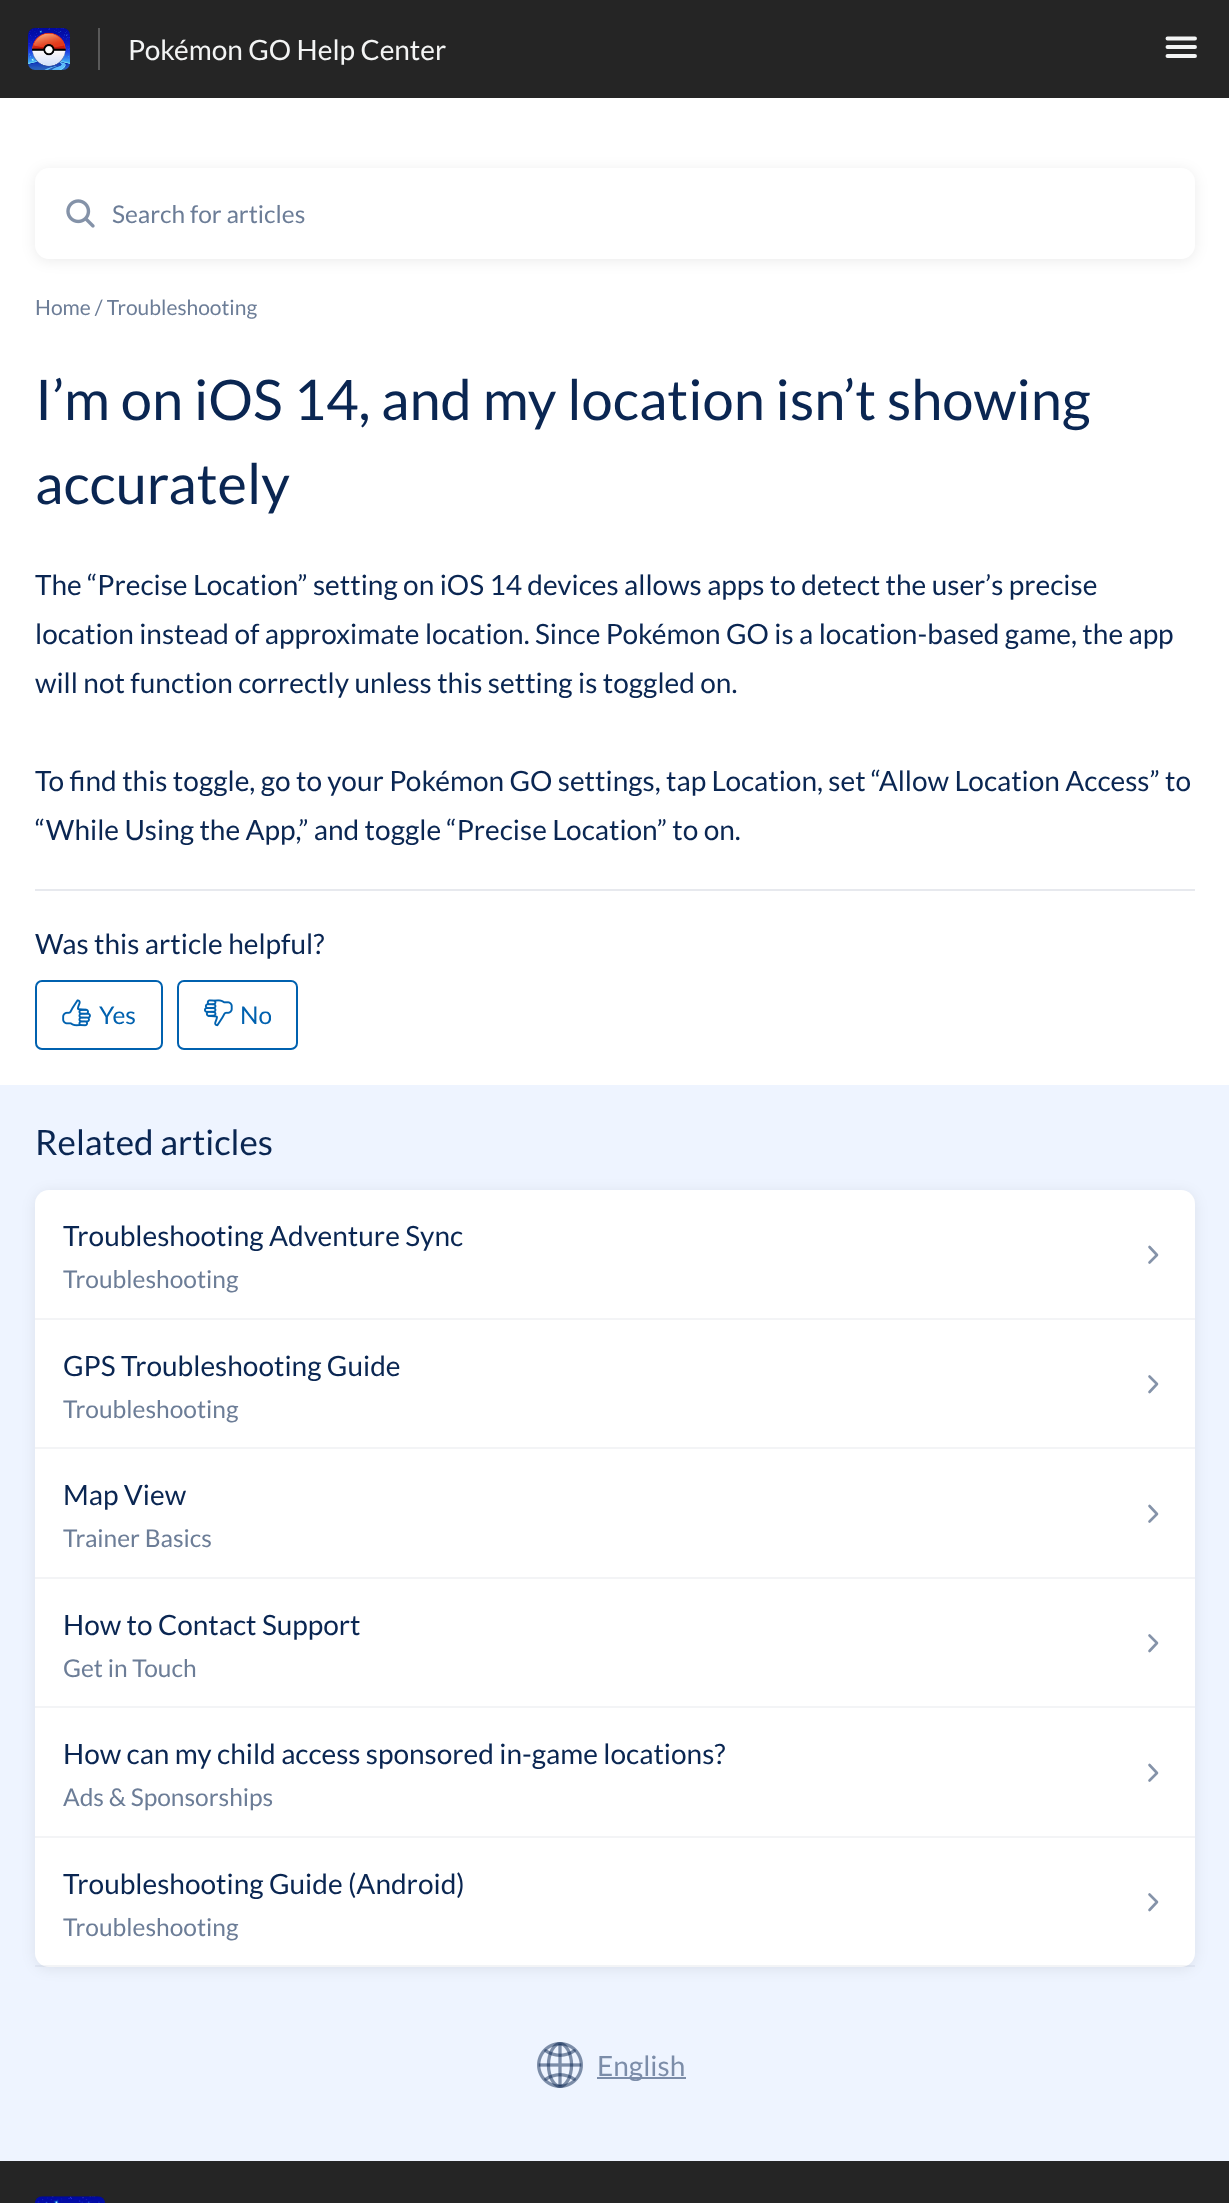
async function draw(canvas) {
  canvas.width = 1229
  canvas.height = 2203
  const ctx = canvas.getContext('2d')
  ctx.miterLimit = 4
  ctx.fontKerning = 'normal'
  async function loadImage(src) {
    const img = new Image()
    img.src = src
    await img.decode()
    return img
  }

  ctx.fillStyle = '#eef4ff'
  ctx.fillRect(0, 0, 1229, 2203)
  ctx.fillStyle = '#252525'
  ctx.fillRect(0, 0, 1229, 98)
  ctx.fillStyle = '#595959'
  ctx.fillRect(98, 28, 2, 42)
  ctx.drawImage(await loadImage('image0.png'), 28, 28, 42, 42)
  ctx.font = '28px Lato'
  ctx.fillStyle = '#f3f4f4'
  ctx.fillText('Pokémon GO Help Center', 128, 60)
  ctx.beginPath()
  ctx.moveTo(1167.5, 38.5)
  ctx.lineTo(1195, 38.5)
  ctx.moveTo(1167.5, 47)
  ctx.lineTo(1195, 47)
  ctx.moveTo(1167.5, 56)
  ctx.lineTo(1195, 56)
  ctx.strokeStyle = '#f3f4f4'
  ctx.lineWidth = 3.9
  ctx.lineCap = 'round'
  ctx.stroke()
  ctx.fillStyle = '#fff'
  ctx.fillRect(0, 98, 1229, 987)
  ctx.fillStyle = '#00000014'
  ctx.filter = 'blur(7px)'
  ctx.beginPath()
  ctx.roundRect(35, 170, 1160, 91, 14)
  ctx.fill()
  ctx.filter = 'none'
  ctx.fillStyle = '#fff'
  ctx.beginPath()
  ctx.roundRect(35, 168, 1160, 91, 14)
  ctx.fill()
  ctx.drawImage(await loadImage('image1.png'), 66, 199, 29, 29)
  ctx.font = '24.5px Lato'
  ctx.fillStyle = '#6c7d97'
  ctx.fillText('Search for articles', 112, 223)
  ctx.font = '21px Lato'
  ctx.fillText('Home / Troubleshooting', 35, 315)
  ctx.font = '56px Lato'
  ctx.fillStyle = '#0a2652'
  ctx.fillText('I’m on iOS 14, and my location isn’t showing', 35, 420)
  ctx.fillText('accurately', 35, 504)
  ctx.fillStyle = '#e7e9ee'
  ctx.fillRect(35, 889, 1160, 2)
  ctx.font = '28px Lato'
  ctx.fillStyle = '#0a2652'
  ctx.fillText('The “Precise Location” setting on iOS 14 devices allows apps to detect the user’s precise', 35, 595)
  ctx.fillText('location instead of approximate location. Since Pokémon GO is a location-based game, the app', 35, 644)
  ctx.fillText('will not function correctly unless this setting is toggled on.', 35, 693)
  ctx.fillText('To find this toggle, go to your Pokémon GO settings, tap Location, set “Allow Location Access” to', 35, 791)
  ctx.fillText('“While Using the App,” and toggle “Precise Location” to on.', 35, 840)
  ctx.fillText('Was this article helpful?', 35, 954)
  ctx.beginPath()
  ctx.roundRect(36, 981, 126, 68, 6)
  ctx.strokeStyle = '#0061af'
  ctx.lineWidth = 2
  ctx.stroke()
  ctx.drawImage(await loadImage('image2.png'), 62, 999, 29, 28)
  ctx.font = '24.5px Lato'
  ctx.fillStyle = '#0061af'
  ctx.fillText('Yes', 99, 1024)
  ctx.beginPath()
  ctx.roundRect(178, 981, 119, 68, 6)
  ctx.stroke()
  ctx.drawImage(await loadImage('image3.png'), 204, 999, 29, 28)
  ctx.save()
  ctx.beginPath()
  ctx.rect(240, 1003, 31, 24)
  ctx.clip()
  ctx.fillText('No', 240, 1024)
  ctx.restore()
  ctx.font = '35px Lato'
  ctx.fillStyle = '#0a2652'
  ctx.fillText('Related articles', 35, 1155)
  ctx.fillStyle = '#00000014'
  ctx.filter = 'blur(7px)'
  ctx.beginPath()
  ctx.roundRect(35, 1192, 1160, 777, 14)
  ctx.fill()
  ctx.filter = 'none'
  ctx.fillStyle = '#fff'
  ctx.beginPath()
  ctx.roundRect(35, 1190, 1160, 777, 14)
  ctx.fill()
  ctx.fillStyle = '#f3f4f6'
  ctx.fillRect(35, 1318, 1160, 2)
  ctx.font = '28px Lato'
  ctx.fillStyle = '#0a2652'
  ctx.fillText('Troubleshooting Adventure Sync', 63, 1246)
  ctx.font = '24.5px Lato'
  ctx.fillStyle = '#6c7d97'
  ctx.fillText('Troubleshooting', 63, 1288)
  ctx.beginPath()
  ctx.moveTo(1149.5, 1247)
  ctx.lineTo(1157, 1255)
  ctx.lineTo(1149.5, 1262.5)
  ctx.strokeStyle = '#8593a9'
  ctx.lineWidth = 2.6
  ctx.lineJoin = 'round'
  ctx.stroke()
  ctx.fillStyle = '#f3f4f6'
  ctx.fillRect(35, 1447, 1160, 2)
  ctx.font = '28px Lato'
  ctx.fillStyle = '#0a2652'
  ctx.fillText('GPS Troubleshooting Guide', 63, 1376)
  ctx.font = '24.5px Lato'
  ctx.fillStyle = '#6c7d97'
  ctx.fillText('Troubleshooting', 63, 1418)
  ctx.beginPath()
  ctx.moveTo(1149.5, 1376.5)
  ctx.lineTo(1157, 1384)
  ctx.lineTo(1149.5, 1392)
  ctx.stroke()
  ctx.fillStyle = '#f3f4f6'
  ctx.fillRect(35, 1577, 1160, 2)
  ctx.font = '28px Lato'
  ctx.fillStyle = '#0a2652'
  ctx.fillText('Map View', 63, 1505)
  ctx.font = '24.5px Lato'
  ctx.fillStyle = '#6c7d97'
  ctx.fillText('Trainer Basics', 63, 1547)
  ctx.beginPath()
  ctx.moveTo(1149.5, 1506)
  ctx.lineTo(1157, 1514)
  ctx.lineTo(1149.5, 1521.5)
  ctx.stroke()
  ctx.fillStyle = '#f3f4f6'
  ctx.fillRect(35, 1706, 1160, 2)
  ctx.font = '28px Lato'
  ctx.fillStyle = '#0a2652'
  ctx.fillText('How to Contact Support', 63, 1635)
  ctx.font = '24.5px Lato'
  ctx.fillStyle = '#6c7d97'
  ctx.fillText('Get in Touch', 63, 1677)
  ctx.beginPath()
  ctx.moveTo(1149.5, 1635.5)
  ctx.lineTo(1157, 1643)
  ctx.lineTo(1149.5, 1651)
  ctx.stroke()
  ctx.fillStyle = '#f3f4f6'
  ctx.fillRect(35, 1836, 1160, 2)
  ctx.font = '28px Lato'
  ctx.fillStyle = '#0a2652'
  ctx.fillText('How can my child access sponsored in-game locations?', 63, 1764)
  ctx.font = '24.5px Lato'
  ctx.fillStyle = '#6c7d97'
  ctx.fillText('Ads & Sponsorships', 63, 1806)
  ctx.beginPath()
  ctx.moveTo(1149.5, 1765)
  ctx.lineTo(1157, 1773)
  ctx.lineTo(1149.5, 1780.5)
  ctx.stroke()
  ctx.fillStyle = '#0a26520d'
  ctx.fillRect(35, 1965, 1160, 2)
  ctx.font = '28px Lato'
  ctx.fillStyle = '#0a2652'
  ctx.fillText('Troubleshooting Guide (Android)', 63, 1894)
  ctx.font = '24.5px Lato'
  ctx.fillStyle = '#6c7d97'
  ctx.fillText('Troubleshooting', 63, 1936)
  ctx.beginPath()
  ctx.moveTo(1149.5, 1894.5)
  ctx.lineTo(1157, 1902)
  ctx.lineTo(1149.5, 1910)
  ctx.stroke()
  ctx.drawImage(await loadImage('image4.png'), 537, 2042, 46, 46)
  ctx.fillStyle = '#7c8da9'
  ctx.fillRect(597, 2077, 89, 2)
  ctx.font = '28px Lato'
  ctx.fillText('English', 597, 2076)
  ctx.fillStyle = '#252525'
  ctx.fillRect(0, 2161, 1229, 42)
  ctx.drawImage(await loadImage('image5.png'), 35, 2196, 70, 7)
}

draw(document.querySelector('canvas'))
